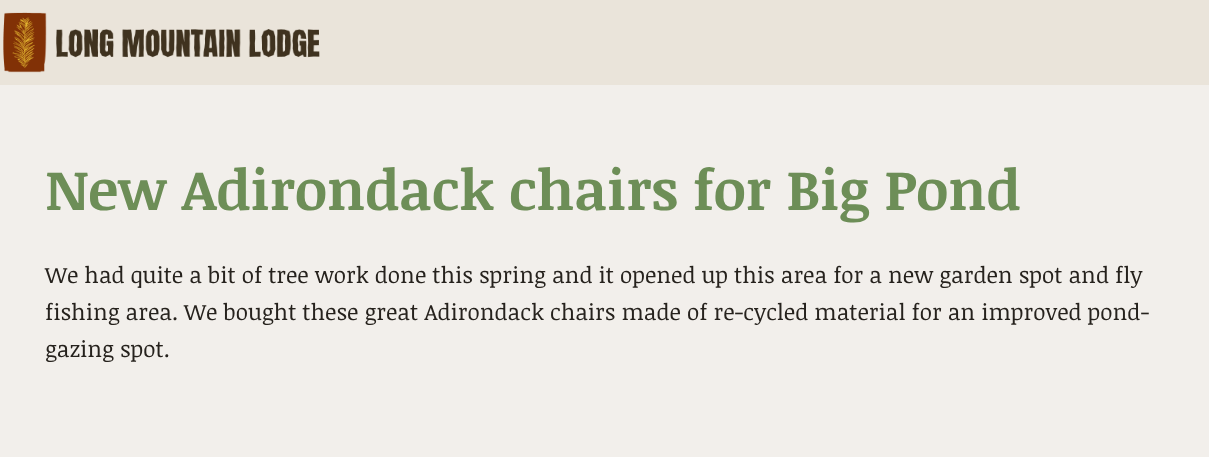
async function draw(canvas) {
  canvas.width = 1209
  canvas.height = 457
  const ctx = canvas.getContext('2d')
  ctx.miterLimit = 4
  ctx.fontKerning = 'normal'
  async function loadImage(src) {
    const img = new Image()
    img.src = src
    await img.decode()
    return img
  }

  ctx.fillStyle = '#f2efeb'
  ctx.fillRect(0, 0, 1209, 457)
  ctx.fillStyle = '#eae4da'
  ctx.fillRect(0, 0, 1209, 85)
  ctx.drawImage(await loadImage('image0.png'), 3, 12, 317, 61)
  ctx.font = 'bold 56.25px Noticia Text'
  ctx.fillStyle = '#6d8e57'
  ctx.fillText('New Adirondack chairs for Big Pond', 45, 210)
  ctx.font = '22.5px Noticia Text'
  ctx.fillStyle = '#26221d'
  ctx.fillText('We had quite a bit of tree work done this spring and it opened up this area for a new garden spot and fly', 45, 283)
  ctx.fillText('fishing area. We bought these great Adirondack chairs made of re-cycled material for an improved pond-', 45, 320)
  ctx.fillText('gazing spot.', 45, 357)
}

draw(document.querySelector('canvas'))
